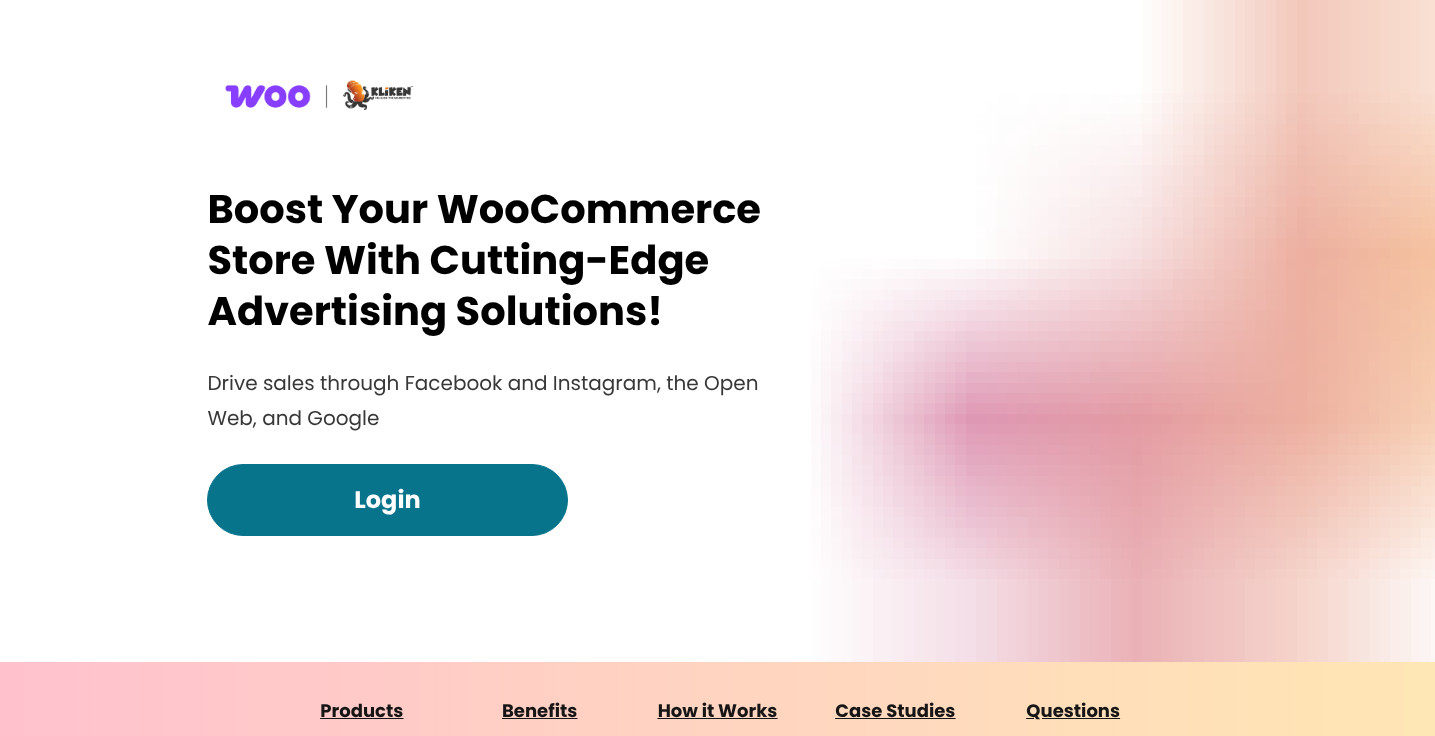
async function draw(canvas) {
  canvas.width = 1435
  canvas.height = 736
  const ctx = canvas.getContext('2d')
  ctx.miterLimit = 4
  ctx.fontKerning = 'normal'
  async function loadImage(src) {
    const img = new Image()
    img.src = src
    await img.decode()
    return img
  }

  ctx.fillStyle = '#fff'
  ctx.fillRect(0, 0, 1435, 736)
  ctx.drawImage(await loadImage('image0.png'), 0, 0, 1435, 736)
}

draw(document.querySelector('canvas'))
